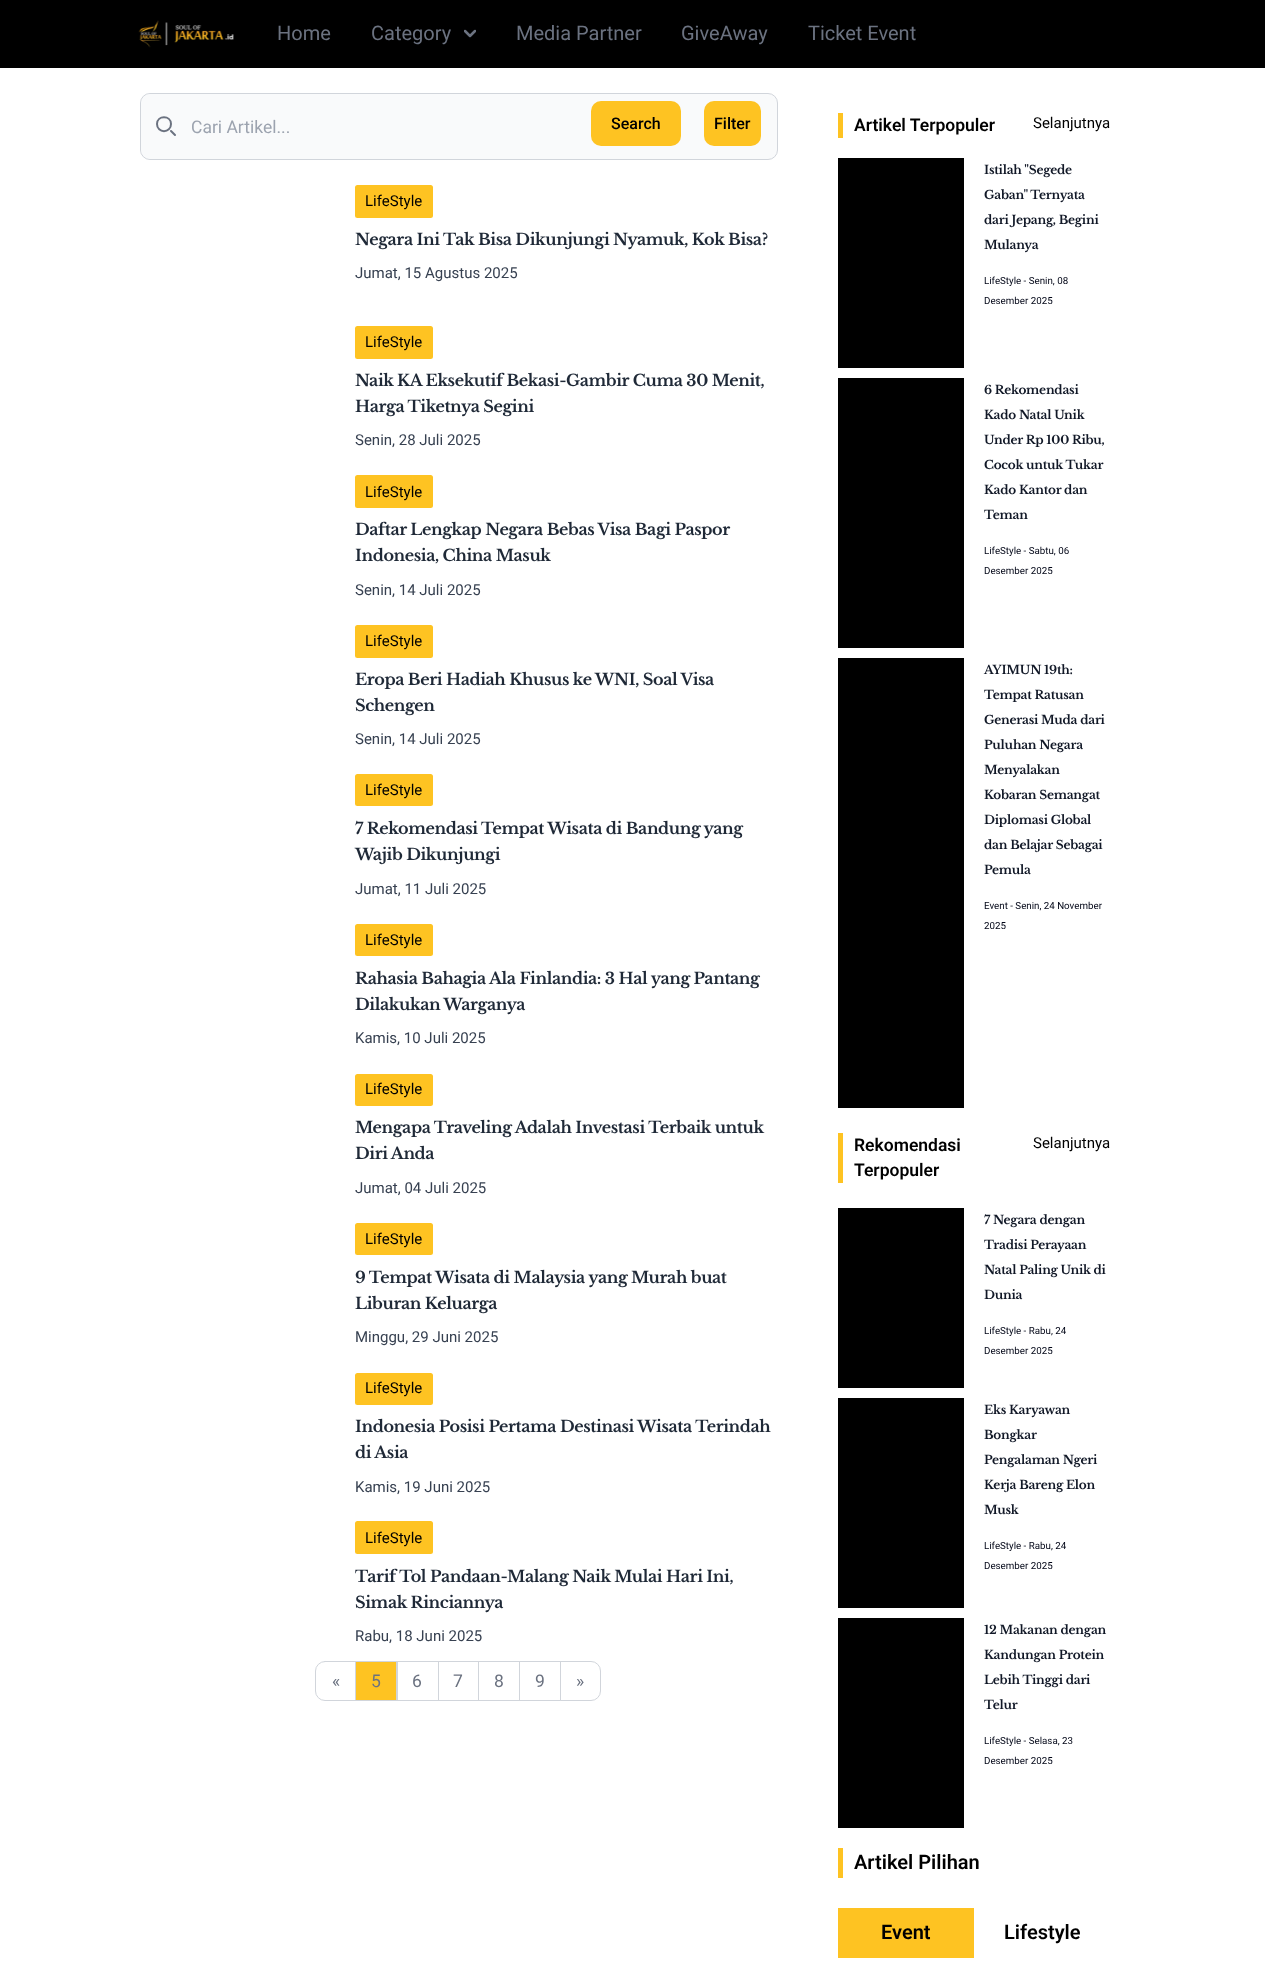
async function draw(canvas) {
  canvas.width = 1265
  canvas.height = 1971
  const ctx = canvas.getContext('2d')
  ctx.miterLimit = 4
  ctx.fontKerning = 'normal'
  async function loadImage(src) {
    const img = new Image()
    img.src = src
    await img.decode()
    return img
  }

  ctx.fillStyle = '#fff'
  ctx.fillRect(0, 0, 1265, 1971)
  ctx.fillStyle = '#000'
  ctx.fillRect(0, 0, 1265, 68)
  ctx.drawImage(await loadImage('image0.png'), 138, 20, 96, 28)
  ctx.font = '20px Roboto'
  ctx.fillStyle = '#6b7280'
  ctx.fillText('Home', 277, 40)
  ctx.fillText('Category', 371, 40)
  ctx.save()
  ctx.beginPath()
  ctx.rect(464, 28, 12, 12)
  ctx.clip()
  ctx.beginPath()
  ctx.moveTo(465, 31)
  ctx.lineTo(470, 36)
  ctx.lineTo(475, 31)
  ctx.strokeStyle = '#6b7280'
  ctx.lineWidth = 2.5
  ctx.lineCap = 'round'
  ctx.lineJoin = 'round'
  ctx.stroke()
  ctx.restore()
  ctx.fillText('Media Partner', 516, 40)
  ctx.fillText('GiveAway', 681, 40)
  ctx.fillText('Ticket Event', 808, 40)
  ctx.fillStyle = '#f9fafb'
  ctx.beginPath()
  ctx.roundRect(140.5, 93.5, 637, 66, 9.5)
  ctx.fill()
  ctx.strokeStyle = '#d1d5db'
  ctx.stroke()
  ctx.beginPath()
  ctx.roundRect(141, 94, 462, 65, 10)
  ctx.fill()
  ctx.beginPath()
  ctx.moveTo(175, 135)
  ctx.lineTo(171, 131)
  ctx.moveTo(171, 124)
  ctx.bezierCurveTo(171, 133.5, 157, 133.5, 157, 124)
  ctx.bezierCurveTo(157, 115, 171, 115, 171, 124)
  ctx.closePath()
  ctx.strokeStyle = '#6b7280'
  ctx.lineWidth = 2
  ctx.lineCap = 'round'
  ctx.lineJoin = 'round'
  ctx.stroke()
  ctx.font = '17.5px Roboto'
  ctx.fillStyle = '#9ca3af'
  ctx.fillText('Cari Artikel...', 191, 133)
  ctx.fillStyle = '#fec322'
  ctx.beginPath()
  ctx.roundRect(591, 101, 90, 45, 10)
  ctx.fill()
  ctx.font = '500 16px Roboto'
  ctx.fillStyle = '#000'
  ctx.fillText('Search', 611, 129)
  ctx.fillStyle = '#fec322'
  ctx.beginPath()
  ctx.roundRect(704, 101, 57, 45, 10)
  ctx.fill()
  ctx.fillStyle = '#000'
  ctx.fillText('Filter', 714, 129)
  ctx.fillStyle = '#fec322'
  ctx.beginPath()
  ctx.roundRect(355, 185, 78, 33, 2.5)
  ctx.fill()
  ctx.font = '15px Roboto'
  ctx.fillStyle = '#000'
  ctx.fillText('LifeStyle', 365, 206)
  ctx.letterSpacing = '-0.4px'
  ctx.font = 'bold 16px Libre Baskerville'
  ctx.fillStyle = '#1f2937'
  ctx.fillText('Negara Ini Tak Bisa Dikunjungi Nyamuk, Kok Bisa?', 355, 245)
  ctx.letterSpacing = '0px'
  ctx.font = '15px Roboto'
  ctx.fillStyle = '#374151'
  ctx.fillText('Jumat, 15 Agustus 2025', 355, 278)
  ctx.fillStyle = '#fec322'
  ctx.beginPath()
  ctx.roundRect(355, 326, 78, 33, 2.5)
  ctx.fill()
  ctx.fillStyle = '#000'
  ctx.fillText('LifeStyle', 365, 347)
  ctx.letterSpacing = '-0.4px'
  ctx.font = 'bold 16px Libre Baskerville'
  ctx.fillStyle = '#1f2937'
  ctx.fillText('Naik KA Eksekutif Bekasi-Gambir Cuma 30 Menit,', 355, 386)
  ctx.fillText('Harga Tiketnya Segini', 355, 412)
  ctx.letterSpacing = '0px'
  ctx.font = '15px Roboto'
  ctx.fillStyle = '#374151'
  ctx.fillText('Senin, 28 Juli 2025', 355, 445)
  ctx.fillStyle = '#fec322'
  ctx.beginPath()
  ctx.roundRect(355, 475, 78, 33, 2.5)
  ctx.fill()
  ctx.fillStyle = '#000'
  ctx.fillText('LifeStyle', 365, 497)
  ctx.letterSpacing = '-0.4px'
  ctx.font = 'bold 16px Libre Baskerville'
  ctx.fillStyle = '#1f2937'
  ctx.fillText('Daftar Lengkap Negara Bebas Visa Bagi Paspor', 355, 535)
  ctx.fillText('Indonesia, China Masuk', 355, 561)
  ctx.letterSpacing = '0px'
  ctx.font = '15px Roboto'
  ctx.fillStyle = '#374151'
  ctx.fillText('Senin, 14 Juli 2025', 355, 595)
  ctx.fillStyle = '#fec322'
  ctx.beginPath()
  ctx.roundRect(355, 625, 78, 33, 2.5)
  ctx.fill()
  ctx.fillStyle = '#000'
  ctx.fillText('LifeStyle', 365, 646)
  ctx.letterSpacing = '-0.4px'
  ctx.font = 'bold 16px Libre Baskerville'
  ctx.fillStyle = '#1f2937'
  ctx.fillText('Eropa Beri Hadiah Khusus ke WNI, Soal Visa', 355, 685)
  ctx.fillText('Schengen', 355, 711)
  ctx.letterSpacing = '0px'
  ctx.font = '15px Roboto'
  ctx.fillStyle = '#374151'
  ctx.fillText('Senin, 14 Juli 2025', 355, 744)
  ctx.fillStyle = '#fec322'
  ctx.beginPath()
  ctx.roundRect(355, 774, 78, 32, 2.5)
  ctx.fill()
  ctx.fillStyle = '#000'
  ctx.fillText('LifeStyle', 365, 795)
  ctx.letterSpacing = '-0.4px'
  ctx.font = 'bold 16px Libre Baskerville'
  ctx.fillStyle = '#1f2937'
  ctx.fillText('7 Rekomendasi Tempat Wisata di Bandung yang', 355, 834)
  ctx.fillText('Wajib Dikunjungi', 355, 860)
  ctx.letterSpacing = '0px'
  ctx.font = '15px Roboto'
  ctx.fillStyle = '#374151'
  ctx.fillText('Jumat, 11 Juli 2025', 355, 894)
  ctx.fillStyle = '#fec322'
  ctx.beginPath()
  ctx.roundRect(355, 924, 78, 32, 2.5)
  ctx.fill()
  ctx.fillStyle = '#000'
  ctx.fillText('LifeStyle', 365, 945)
  ctx.letterSpacing = '-0.4px'
  ctx.font = 'bold 16px Libre Baskerville'
  ctx.fillStyle = '#1f2937'
  ctx.fillText('Rahasia Bahagia Ala Finlandia: 3 Hal yang Pantang', 355, 984)
  ctx.fillText('Dilakukan Warganya', 355, 1010)
  ctx.letterSpacing = '0px'
  ctx.font = '15px Roboto'
  ctx.fillStyle = '#374151'
  ctx.fillText('Kamis, 10 Juli 2025', 355, 1043)
  ctx.fillStyle = '#fec322'
  ctx.beginPath()
  ctx.roundRect(355, 1074, 78, 32, 2.5)
  ctx.fill()
  ctx.fillStyle = '#000'
  ctx.fillText('LifeStyle', 365, 1094)
  ctx.letterSpacing = '-0.4px'
  ctx.font = 'bold 16px Libre Baskerville'
  ctx.fillStyle = '#1f2937'
  ctx.fillText('Mengapa Traveling Adalah Investasi Terbaik untuk', 355, 1133)
  ctx.fillText('Diri Anda', 355, 1159)
  ctx.letterSpacing = '0px'
  ctx.font = '15px Roboto'
  ctx.fillStyle = '#374151'
  ctx.fillText('Jumat, 04 Juli 2025', 355, 1193)
  ctx.fillStyle = '#fec322'
  ctx.beginPath()
  ctx.roundRect(355, 1223, 78, 32, 2.5)
  ctx.fill()
  ctx.fillStyle = '#000'
  ctx.fillText('LifeStyle', 365, 1244)
  ctx.letterSpacing = '-0.4px'
  ctx.font = 'bold 16px Libre Baskerville'
  ctx.fillStyle = '#1f2937'
  ctx.fillText('9 Tempat Wisata di Malaysia yang Murah buat', 355, 1283)
  ctx.fillText('Liburan Keluarga', 355, 1309)
  ctx.letterSpacing = '0px'
  ctx.font = '15px Roboto'
  ctx.fillStyle = '#374151'
  ctx.fillText('Minggu, 29 Juni 2025', 355, 1342)
  ctx.fillStyle = '#fec322'
  ctx.beginPath()
  ctx.roundRect(355, 1373, 78, 32, 2.5)
  ctx.fill()
  ctx.fillStyle = '#000'
  ctx.fillText('LifeStyle', 365, 1393)
  ctx.letterSpacing = '-0.4px'
  ctx.font = 'bold 16px Libre Baskerville'
  ctx.fillStyle = '#1f2937'
  ctx.fillText('Indonesia Posisi Pertama Destinasi Wisata Terindah', 355, 1432)
  ctx.fillText('di Asia', 355, 1458)
  ctx.letterSpacing = '0px'
  ctx.font = '15px Roboto'
  ctx.fillStyle = '#374151'
  ctx.fillText('Kamis, 19 Juni 2025', 355, 1492)
  ctx.fillStyle = '#fec322'
  ctx.beginPath()
  ctx.roundRect(355, 1521, 78, 33, 2.5)
  ctx.fill()
  ctx.fillStyle = '#000'
  ctx.fillText('LifeStyle', 365, 1543)
  ctx.letterSpacing = '-0.4px'
  ctx.font = 'bold 16px Libre Baskerville'
  ctx.fillStyle = '#1f2937'
  ctx.fillText('Tarif Tol Pandaan-Malang Naik Mulai Hari Ini,', 355, 1582)
  ctx.fillText('Simak Rinciannya', 355, 1608)
  ctx.letterSpacing = '0px'
  ctx.font = '15px Roboto'
  ctx.fillStyle = '#374151'
  ctx.fillText('Rabu, 18 Juni 2025', 355, 1641)
  ctx.beginPath()
  ctx.roundRect(315.5, 1661.5, 40, 39, [9.5, 0, 0, 9.5])
  ctx.strokeStyle = '#d1d5db'
  ctx.lineWidth = 1
  ctx.lineJoin = 'miter'
  ctx.stroke()
  ctx.font = '17.5px Roboto'
  ctx.fillStyle = '#6b7280'
  ctx.fillText('«', 332, 1687)
  ctx.fillStyle = '#fec322'
  ctx.fillRect(356, 1662, 40, 38)
  ctx.strokeRect(355.5, 1661.5, 42, 39)
  ctx.fillStyle = '#6b7280'
  ctx.fillText('5', 371, 1687)
  ctx.strokeRect(396.5, 1661.5, 42, 39)
  ctx.fillText('6', 412, 1687)
  ctx.strokeRect(438.5, 1661.5, 40, 39)
  ctx.fillText('7', 453, 1687)
  ctx.strokeRect(478.5, 1661.5, 41, 39)
  ctx.fillText('8', 494, 1687)
  ctx.strokeRect(519.5, 1661.5, 41, 39)
  ctx.fillText('9', 535, 1687)
  ctx.fillStyle = '#fff'
  ctx.beginPath()
  ctx.roundRect(560.5, 1661.5, 40, 39, [0, 9.5, 9.5, 0])
  ctx.fill()
  ctx.stroke()
  ctx.fillStyle = '#6b7280'
  ctx.fillText('»', 576, 1687)
  ctx.fillStyle = '#fec322'
  ctx.fillRect(838, 113, 5, 25)
  ctx.font = '600 17.5px Roboto'
  ctx.fillStyle = '#000'
  ctx.fillText('Artikel Terpopuler', 854, 131)
  ctx.font = '15px Roboto'
  ctx.fillText('Selanjutnya', 1033, 128)
  ctx.fillRect(838, 158, 126, 210)
  ctx.letterSpacing = '-0.25px'
  ctx.font = 'bold 12px Libre Baskerville'
  ctx.fillStyle = '#111827'
  ctx.fillText('Istilah "Segede', 984, 174)
  ctx.fillText('Gaban" Ternyata', 984, 199)
  ctx.fillText('dari Jepang, Begini', 984, 224)
  ctx.fillText('Mulanya', 984, 249)
  ctx.letterSpacing = '0px'
  ctx.font = '9.75px Roboto'
  ctx.fillStyle = '#020617'
  ctx.fillText('LifeStyle - Senin, 08', 984, 284)
  ctx.fillText('Desember 2025', 984, 304)
  ctx.fillStyle = '#000'
  ctx.fillRect(838, 378, 126, 270)
  ctx.letterSpacing = '-0.25px'
  ctx.font = 'bold 12px Libre Baskerville'
  ctx.fillStyle = '#111827'
  ctx.fillText('6 Rekomendasi', 984, 394)
  ctx.fillText('Kado Natal Unik', 984, 419)
  ctx.fillText('Under Rp 100 Ribu,', 984, 444)
  ctx.fillText('Cocok untuk Tukar', 984, 469)
  ctx.fillText('Kado Kantor dan', 984, 494)
  ctx.fillText('Teman', 984, 519)
  ctx.letterSpacing = '0px'
  ctx.font = '9.75px Roboto'
  ctx.fillStyle = '#020617'
  ctx.fillText('LifeStyle - Sabtu, 06', 984, 554)
  ctx.fillText('Desember 2025', 984, 574)
  ctx.fillStyle = '#000'
  ctx.fillRect(838, 658, 126, 450)
  ctx.letterSpacing = '-0.25px'
  ctx.font = 'bold 12px Libre Baskerville'
  ctx.fillStyle = '#111827'
  ctx.fillText('AYIMUN 19th:', 984, 674)
  ctx.fillText('Tempat Ratusan', 984, 699)
  ctx.fillText('Generasi Muda dari', 984, 724)
  ctx.fillText('Puluhan Negara', 984, 749)
  ctx.fillText('Menyalakan', 984, 774)
  ctx.fillText('Kobaran Semangat', 984, 799)
  ctx.fillText('Diplomasi Global', 984, 824)
  ctx.fillText('dan Belajar Sebagai', 984, 849)
  ctx.fillText('Pemula', 984, 874)
  ctx.letterSpacing = '0px'
  ctx.font = '9.75px Roboto'
  ctx.fillStyle = '#020617'
  ctx.fillText('Event - Senin, 24 November', 984, 909)
  ctx.fillText('2025', 984, 929)
  ctx.fillStyle = '#fec322'
  ctx.fillRect(838, 1133, 5, 50)
  ctx.font = '600 17.5px Roboto'
  ctx.fillStyle = '#000'
  ctx.fillText('Rekomendasi', 854, 1151)
  ctx.fillText('Terpopuler', 854, 1176)
  ctx.font = '15px Roboto'
  ctx.fillText('Selanjutnya', 1033, 1148)
  ctx.fillRect(838, 1208, 126, 180)
  ctx.letterSpacing = '-0.25px'
  ctx.font = 'bold 12px Libre Baskerville'
  ctx.fillStyle = '#111827'
  ctx.fillText('7 Negara dengan', 984, 1224)
  ctx.fillText('Tradisi Perayaan', 984, 1249)
  ctx.fillText('Natal Paling Unik di', 984, 1274)
  ctx.fillText('Dunia', 984, 1299)
  ctx.letterSpacing = '0px'
  ctx.font = '9.75px Roboto'
  ctx.fillStyle = '#020617'
  ctx.fillText('LifeStyle - Rabu, 24', 984, 1334)
  ctx.fillText('Desember 2025', 984, 1354)
  ctx.fillStyle = '#000'
  ctx.fillRect(838, 1398, 126, 210)
  ctx.letterSpacing = '-0.25px'
  ctx.font = 'bold 12px Libre Baskerville'
  ctx.fillStyle = '#111827'
  ctx.fillText('Eks Karyawan', 984, 1414)
  ctx.fillText('Bongkar', 984, 1439)
  ctx.fillText('Pengalaman Ngeri', 984, 1464)
  ctx.fillText('Kerja Bareng Elon', 984, 1489)
  ctx.fillText('Musk', 984, 1514)
  ctx.letterSpacing = '0px'
  ctx.font = '9.75px Roboto'
  ctx.fillStyle = '#020617'
  ctx.fillText('LifeStyle - Rabu, 24', 984, 1549)
  ctx.fillText('Desember 2025', 984, 1569)
  ctx.fillStyle = '#000'
  ctx.fillRect(838, 1618, 126, 210)
  ctx.letterSpacing = '-0.25px'
  ctx.font = 'bold 12px Libre Baskerville'
  ctx.fillStyle = '#111827'
  ctx.fillText('12 Makanan dengan', 984, 1634)
  ctx.fillText('Kandungan Protein', 984, 1659)
  ctx.fillText('Lebih Tinggi dari', 984, 1684)
  ctx.fillText('Telur', 984, 1709)
  ctx.letterSpacing = '0px'
  ctx.font = '9.75px Roboto'
  ctx.fillStyle = '#020617'
  ctx.fillText('LifeStyle - Selasa, 23', 984, 1744)
  ctx.fillText('Desember 2025', 984, 1764)
  ctx.fillStyle = '#fec322'
  ctx.fillRect(838, 1848, 5, 30)
  ctx.font = '600 20px Roboto'
  ctx.fillStyle = '#000'
  ctx.fillText('Artikel Pilihan', 854, 1869)
  ctx.fillStyle = '#fec322'
  ctx.fillRect(838, 1908, 136, 50)
  ctx.fillStyle = '#000'
  ctx.fillText('Event', 881, 1939)
  ctx.fillText('Lifestyle', 1004, 1939)
}

draw(document.querySelector('canvas'))
